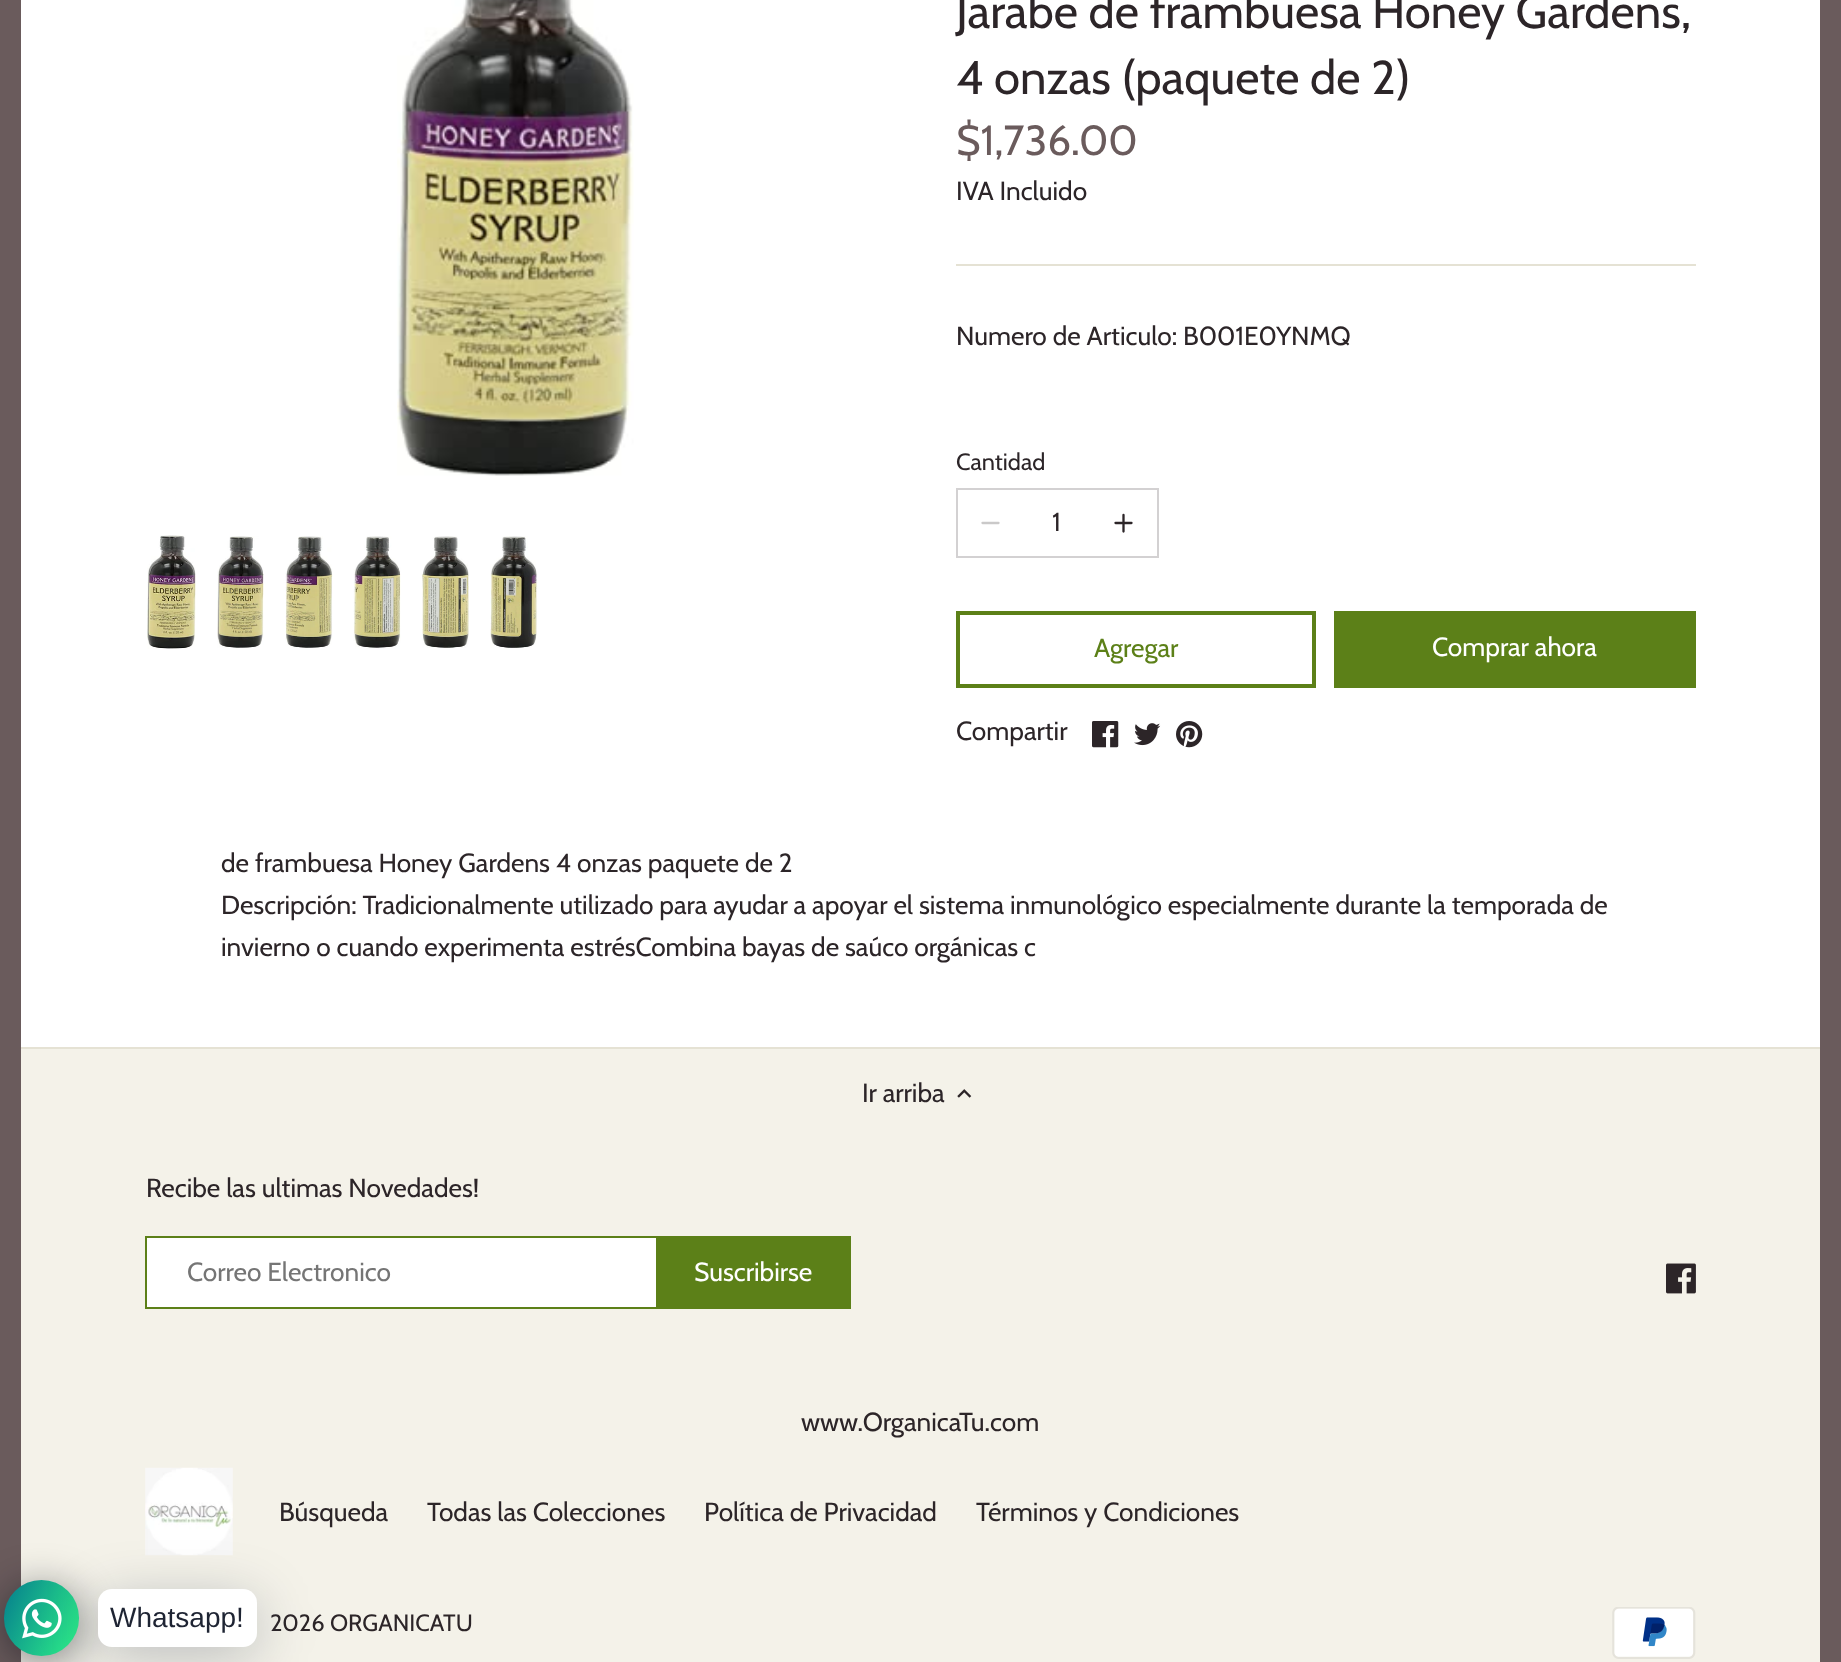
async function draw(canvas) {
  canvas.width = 1841
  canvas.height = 1662
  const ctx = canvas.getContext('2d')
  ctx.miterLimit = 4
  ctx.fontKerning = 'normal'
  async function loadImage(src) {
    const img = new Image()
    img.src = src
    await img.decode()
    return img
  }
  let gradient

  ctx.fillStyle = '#f4f2e9'
  ctx.fillRect(0, 0, 1841, 1662)
  ctx.strokeStyle = '#6a5b5c'
  ctx.lineWidth = 21
  ctx.strokeRect(10.5, -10.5, 1820, 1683)
  ctx.fillStyle = '#fff'
  ctx.fillRect(21, 0, 1799, 1047)
  ctx.drawImage(await loadImage('image0.png'), 397, 0, 237, 476)
  ctx.drawImage(await loadImage('image1.png'), 147, 535, 49, 114)
  ctx.drawImage(await loadImage('image2.png'), 217, 536, 47, 112)
  ctx.drawImage(await loadImage('image3.png'), 285, 536, 48, 112)
  ctx.drawImage(await loadImage('image4.png'), 353, 536, 48, 113)
  ctx.drawImage(await loadImage('image5.png'), 421, 536, 48, 112)
  ctx.drawImage(await loadImage('image6.png'), 490, 536, 48, 112)
  ctx.fillStyle = '#e5e2d4'
  ctx.fillRect(956, 264, 740, 2)
  ctx.font = '47.25px Cabin'
  ctx.fillStyle = '#2c2528'
  ctx.fillText('Jarabe de frambuesa Honey Gardens,', 956, 28)
  ctx.fillText('4 onzas (paquete de 2)', 956, 94)
  ctx.font = '42px Cabin'
  ctx.fillStyle = '#6a5b5c'
  ctx.fillText('$1,736.00', 956, 155)
  ctx.font = '26.25px Cabin'
  ctx.fillStyle = '#2c2528'
  ctx.fillText('IVA Incluido', 956, 200)
  ctx.fillText('Numero de Articulo: B001E0YNMQ', 956, 345)
  ctx.font = '23.6px Cabin'
  ctx.fillText('Cantidad', 956, 470)
  ctx.strokeStyle = '#d3d1d2'
  ctx.lineWidth = 2
  ctx.strokeRect(957, 489, 201, 68)
  ctx.beginPath()
  ctx.moveTo(982.5, 523)
  ctx.lineTo(998.5, 523)
  ctx.strokeStyle = '#cac9c9'
  ctx.lineWidth = 2.3
  ctx.lineCap = 'round'
  ctx.lineJoin = 'round'
  ctx.stroke()
  ctx.font = '26.25px Cabin'
  ctx.fillText('1', 1052, 531)
  ctx.beginPath()
  ctx.moveTo(1123.5, 515)
  ctx.lineTo(1123.5, 531.5)
  ctx.moveTo(1115.5, 523)
  ctx.lineTo(1131.5, 523)
  ctx.strokeStyle = '#2c2528'
  ctx.stroke()
  ctx.strokeStyle = '#5c8018'
  ctx.lineWidth = 4
  ctx.lineJoin = 'miter'
  ctx.strokeRect(958, 613, 356, 73)
  ctx.fillStyle = '#5c8018'
  ctx.fillText('Agregar', 1094, 657)
  ctx.fillRect(1334, 611, 362, 77)
  ctx.fillStyle = '#fff'
  ctx.fillText('Comprar ahora', 1432, 656)
  ctx.fillStyle = '#2c2528'
  ctx.fillText('Compartir', 956, 740)
  ctx.drawImage(await loadImage('image7.png'), 1092, 721, 27, 27)
  ctx.drawImage(await loadImage('image8.png'), 1134, 723, 27, 23)
  ctx.drawImage(await loadImage('image9.png'), 1176, 721, 27, 27)
  ctx.fillText('de frambuesa Honey Gardens 4 onzas paquete de 2', 221, 872)
  ctx.fillText('Descripción: Tradicionalmente utilizado para ayudar a apoyar el sistema inmunológico especialmente durante la temporada de', 221, 914)
  ctx.fillText('invierno o cuando experimenta estrésCombina bayas de saúco orgánicas c', 221, 956)
  ctx.fillStyle = '#e5e2d4'
  ctx.fillRect(21, 1047, 1799, 2)
  ctx.fillStyle = '#2c2528'
  ctx.fillText('Ir arriba', 862, 1102)
  ctx.drawImage(await loadImage('image10.png'), 957, 1089, 15, 9)
  ctx.fillText('Recibe las ultimas Novedades!', 146, 1197)
  ctx.fillStyle = '#fff'
  ctx.fillRect(147, 1238, 509, 69)
  ctx.lineWidth = 2
  ctx.strokeRect(146, 1237, 702, 71)
  ctx.fillStyle = '#757575'
  ctx.fillText('Correo Electronico', 187, 1281)
  ctx.fillStyle = '#5c8018'
  ctx.fillRect(656, 1236, 195, 73)
  ctx.fillStyle = '#fff'
  ctx.fillText('Suscribirse', 694, 1281)
  ctx.drawImage(await loadImage('image11.png'), 1666, 1263, 30, 31)
  ctx.fillStyle = '#2c2528'
  ctx.fillText('www.OrganicaTu.com', 801, 1431)
  ctx.drawImage(await loadImage('image12.png'), 145, 1467, 88, 89)
  ctx.fillText('Búsqueda', 279, 1521)
  ctx.fillText('Todas las Colecciones', 427, 1521)
  ctx.fillText('Política de Privacidad', 704, 1521)
  ctx.fillText('Términos y Condiciones', 976, 1521)
  ctx.font = '23.6px Cabin'
  ctx.fillText('2026 ORGANICATU', 270, 1631)
  ctx.drawImage(await loadImage('image13.png'), 1612, 1607, 84, 52)
  ctx.fillStyle = '#02061080'
  ctx.filter = 'blur(21px)'
  ctx.beginPath()
  ctx.roundRect(4, 1587, 75, 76, 37.5)
  ctx.fill()
  ctx.filter = 'none'
  gradient = ctx.createLinearGradient(-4.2, 1597, 86, 1639)
  gradient.addColorStop(0, '#047c8d')
  gradient.addColorStop(1, '#2ff289')
  ctx.fillStyle = gradient
  ctx.beginPath()
  ctx.roundRect(4, 1580, 75, 76, 37.5)
  ctx.fill()
  ctx.fillStyle = '#00122e3d'
  ctx.filter = 'blur(28px)'
  ctx.beginPath()
  ctx.roundRect(98, 1600, 159, 57, 14)
  ctx.fill()
  ctx.filter = 'none'
  ctx.drawImage(await loadImage('image14.png'), 22, 1598, 40, 41)
  ctx.fillStyle = '#fff'
  ctx.beginPath()
  ctx.roundRect(98, 1589, 159, 58, 14)
  ctx.fill()
  ctx.font = '28px Liberation Sans'
  ctx.fillStyle = '#1e2433'
  ctx.fillText('Whatsapp!', 110, 1627)
}

draw(document.querySelector('canvas'))
